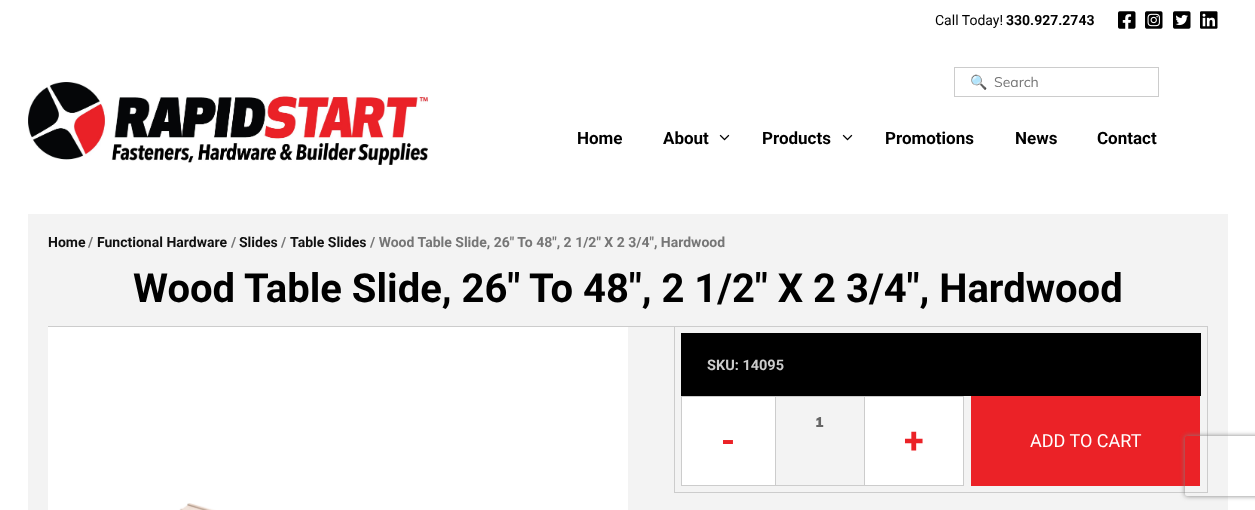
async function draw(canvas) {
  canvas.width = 1255
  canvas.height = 510
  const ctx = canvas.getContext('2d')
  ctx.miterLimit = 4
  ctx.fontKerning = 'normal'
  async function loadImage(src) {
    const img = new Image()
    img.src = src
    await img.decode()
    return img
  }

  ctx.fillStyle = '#fff'
  ctx.fillRect(0, 0, 1255, 510)
  ctx.font = '14px Roboto'
  ctx.fillStyle = '#000'
  ctx.fillText('Call Today!', 935, 25)
  ctx.font = 'bold 14px Roboto'
  ctx.fillText('330.927.2743', 1006, 25)
  ctx.drawImage(await loadImage('image0.png'), 1118, 11, 18, 18)
  ctx.drawImage(await loadImage('image1.png'), 1145, 11, 18, 18)
  ctx.drawImage(await loadImage('image2.png'), 1173, 11, 18, 18)
  ctx.drawImage(await loadImage('image3.png'), 1200, 11, 18, 18)
  ctx.strokeStyle = '#ccc'
  ctx.strokeRect(954.5, 67.5, 204, 29)
  ctx.save()
  ctx.beginPath()
  ctx.rect(970, 73, 159, 18)
  ctx.clip()
  ctx.font = '14px Noto Color Emoji'
  ctx.fillStyle = '#767676'
  ctx.fillText('🔍', 970, 87)
  ctx.restore()
  ctx.font = '14px Muli'
  ctx.fillStyle = '#767676'
  ctx.fillText('Search', 994, 87)
  ctx.drawImage(await loadImage('image4.png'), 28, 82, 400, 83)
  ctx.font = 'bold 17px Roboto'
  ctx.fillStyle = '#000'
  ctx.fillText('Home', 577, 144)
  ctx.fillText('About', 663, 144)
  ctx.drawImage(await loadImage('image5.png'), 719, 134, 11, 7)
  ctx.fillText('Products', 762, 144)
  ctx.drawImage(await loadImage('image5.png'), 842, 134, 11, 7)
  ctx.fillText('Promotions', 885, 144)
  ctx.fillText('News', 1015, 144)
  ctx.fillText('Contact', 1097, 144)
  ctx.fillStyle = '#f3f3f3'
  ctx.fillRect(28, 214, 1200, 296)
  ctx.font = 'bold 14px Roboto'
  ctx.fillStyle = '#111'
  ctx.fillText('Home', 48, 247)
  ctx.fillStyle = '#767676'
  ctx.fillText('/', 88, 247)
  ctx.fillStyle = '#111'
  ctx.fillText('Functional Hardware', 97, 247)
  ctx.fillStyle = '#767676'
  ctx.fillText('/', 231, 247)
  ctx.fillStyle = '#111'
  ctx.fillText('Slides', 239, 247)
  ctx.fillStyle = '#767676'
  ctx.fillText('/', 281, 247)
  ctx.fillStyle = '#111'
  ctx.fillText('Table Slides', 290, 247)
  ctx.fillStyle = '#767676'
  ctx.fillText('/ Wood Table Slide, 26″ To 48″, 2 1/2″ X 2 3/4″, Hardwood', 370, 247)
  ctx.fillStyle = '#ccc'
  ctx.fillRect(48, 326, 1160, 1)
  ctx.font = 'bold 40px Roboto'
  ctx.fillStyle = '#000'
  ctx.fillText('Wood Table Slide, 26″ To 48″, 2 1/2″ X 2 3/4″, Hardwood', 133, 302)
  ctx.drawImage(await loadImage('image6.png'), 48, 327, 580, 183)
  ctx.fillStyle = '#ccc'
  ctx.fillRect(1207, 327, 1, 166)
  ctx.fillRect(674, 492, 534, 1)
  ctx.fillRect(674, 327, 1, 166)
  ctx.fillStyle = '#000'
  ctx.fillRect(681, 333, 520, 63)
  ctx.font = 'bold 14.5px Roboto'
  ctx.fillStyle = '#ccc'
  ctx.fillText('SKU: 14095', 707, 370)
  ctx.strokeRect(775.5, 396.5, 89, 89)
  ctx.font = '900 14px Muli'
  ctx.fillStyle = '#666'
  ctx.fillText('1', 815, 427)
  ctx.fillStyle = '#fff'
  ctx.fillRect(682, 397, 93, 88)
  ctx.fillStyle = '#ccc'
  ctx.fillRect(681, 396, 94, 1)
  ctx.fillRect(681, 485, 94, 1)
  ctx.fillRect(681, 396, 1, 90)
  ctx.font = 'bold 36px Roboto'
  ctx.fillStyle = '#eb2227'
  ctx.fillText('-', 721, 453)
  ctx.fillStyle = '#fff'
  ctx.fillRect(865, 397, 98, 88)
  ctx.fillStyle = '#ccc'
  ctx.fillRect(865, 396, 99, 1)
  ctx.fillRect(963, 396, 1, 90)
  ctx.fillRect(865, 485, 99, 1)
  ctx.fillStyle = '#eb2227'
  ctx.fillText('+', 904, 453)
  ctx.fillRect(971, 396, 229, 90)
  ctx.font = '18px Roboto'
  ctx.fillStyle = '#fff'
  ctx.fillText('ADD TO CART', 1030, 447)
  ctx.save()
  ctx.beginPath()
  ctx.moveTo(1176, 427)
  ctx.lineTo(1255, 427)
  ctx.lineTo(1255, 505)
  ctx.lineTo(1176, 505)
  ctx.closePath()
  ctx.moveTo(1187, 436)
  ctx.lineTo(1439, 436)
  ctx.bezierCurveTo(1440, 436, 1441, 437, 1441, 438)
  ctx.lineTo(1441, 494)
  ctx.bezierCurveTo(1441, 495, 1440, 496, 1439, 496)
  ctx.lineTo(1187, 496)
  ctx.bezierCurveTo(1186, 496, 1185, 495, 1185, 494)
  ctx.lineTo(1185, 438)
  ctx.bezierCurveTo(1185, 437, 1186, 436, 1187, 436)
  ctx.closePath()
  ctx.clip('evenodd')
  ctx.fillStyle = '#808080'
  ctx.filter = 'blur(2.5px)'
  ctx.beginPath()
  ctx.roundRect(1185, 436, 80, 60, 2)
  ctx.fill()
  ctx.filter = 'none'
  ctx.restore()
}

draw(document.querySelector('canvas'))
